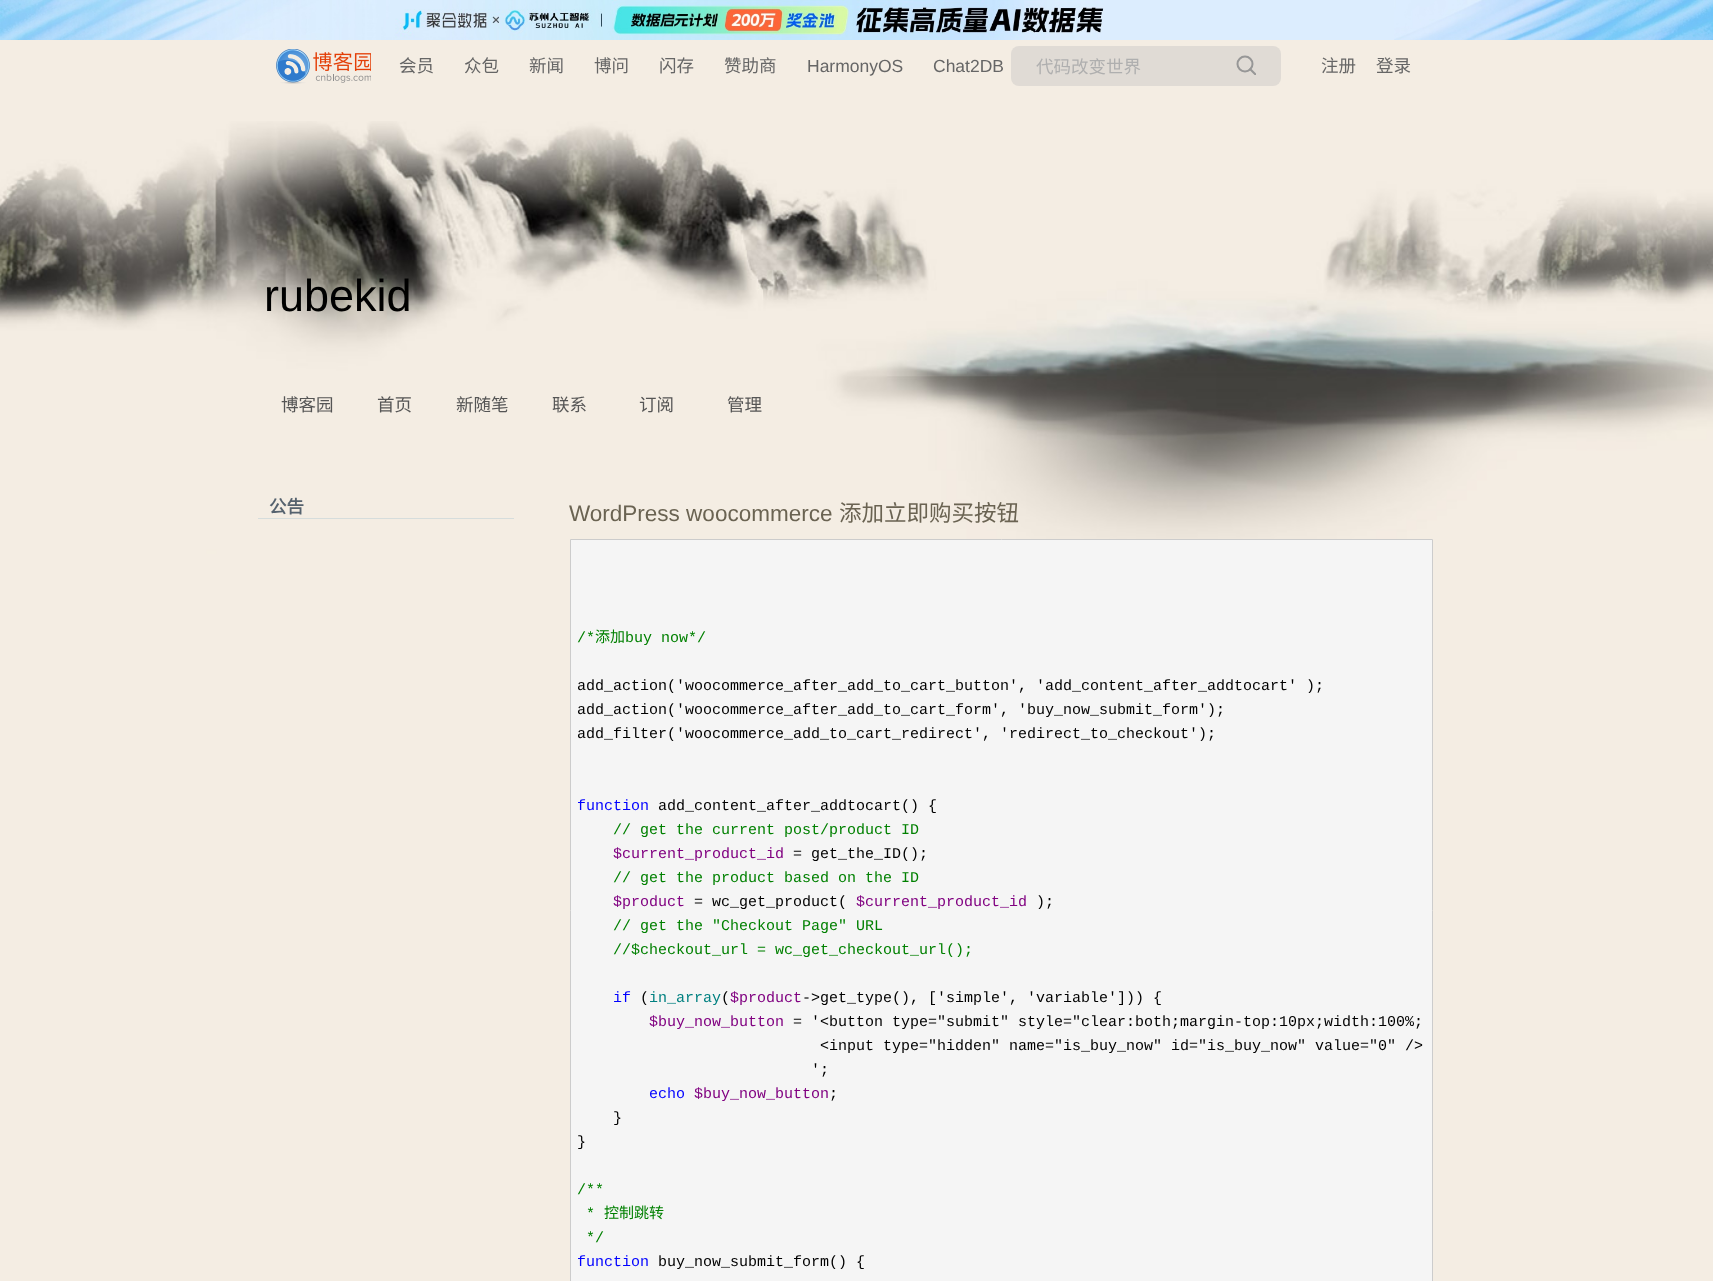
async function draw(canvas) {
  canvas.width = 1713
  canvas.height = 1281
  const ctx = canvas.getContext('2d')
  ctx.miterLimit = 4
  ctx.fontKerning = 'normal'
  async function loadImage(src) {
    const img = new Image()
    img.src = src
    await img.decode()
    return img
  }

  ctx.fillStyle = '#f4ede3'
  ctx.fillRect(0, 0, 1713, 1281)
  ctx.fillStyle = '#dcedfe'
  ctx.fillRect(1104, 0, 290, 40)
  ctx.drawImage(await loadImage('image0.png'), 0, 0, 1104, 40)
  ctx.drawImage(await loadImage('image1.png'), 1394, 0, 319, 40)
  ctx.drawImage(await loadImage('image2.png'), 276, 49, 95, 35)
  ctx.font = '17.5px Noto Sans CJK SC'
  ctx.fillStyle = '#666'
  ctx.fillText('会员', 399, 72)
  ctx.fillText('众包', 464, 72)
  ctx.fillText('新闻', 529, 72)
  ctx.fillText('博问', 594, 72)
  ctx.fillText('闪存', 659, 72)
  ctx.fillText('赞助商', 724, 72)
  ctx.font = '17.5px Liberation Sans'
  ctx.fillText('HarmonyOS', 807, 72)
  ctx.fillText('Chat2DB', 933, 72)
  ctx.fillStyle = '#e0dbd5'
  ctx.beginPath()
  ctx.roundRect(1011, 46, 270, 40, 8)
  ctx.fill()
  ctx.font = '17.5px Noto Sans CJK SC'
  ctx.fillStyle = '#afafaf'
  ctx.fillText('代码改变世界', 1036, 73)
  ctx.beginPath()
  ctx.arc(1245, 64, 7.5, 0, 2 * Math.PI)
  ctx.strokeStyle = '#979797'
  ctx.lineWidth = 2
  ctx.stroke()
  ctx.save()
  ctx.beginPath()
  ctx.rect(1236, 55, 20, 20)
  ctx.clip()
  ctx.beginPath()
  ctx.moveTo(1249.5, 68.5)
  ctx.lineTo(1257.5, 76.5)
  ctx.stroke()
  ctx.restore()
  ctx.fillStyle = '#666'
  ctx.fillText('注册', 1321, 72)
  ctx.fillText('登录', 1376, 72)
  ctx.drawImage(await loadImage('image3.png'), 0, 121, 1713, 433)
  ctx.font = '45px Liberation Sans'
  ctx.fillStyle = '#000'
  ctx.fillText('rubekid', 264, 311)
  ctx.font = '17.5px Noto Sans CJK SC'
  ctx.fillStyle = '#555'
  ctx.fillText('博客园', 281, 411)
  ctx.fillText('首页', 377, 411)
  ctx.fillText('新随笔', 456, 411)
  ctx.fillText('联系', 552, 411)
  ctx.fillText('订阅', 639, 411)
  ctx.fillText('管理', 727, 411)
  ctx.fillStyle = '#d6dddc'
  ctx.fillRect(258, 518, 256, 1)
  ctx.font = 'bold 17.5px Noto Sans CJK SC'
  ctx.fillStyle = '#55626e'
  ctx.fillText('公告', 269, 513)
  ctx.font = '22.5px Liberation Sans'
  ctx.fillStyle = '#6a6352'
  ctx.fillText('WordPress woocommerce', 569, 521)
  ctx.font = '22.5px Noto Sans CJK SC'
  ctx.fillText('添加立即购买按钮', 839, 521)
  ctx.fillStyle = '#f5f5f5'
  ctx.beginPath()
  ctx.rect(570.5, 539.5, 862, 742)
  ctx.fill()
  ctx.strokeStyle = '#ccc'
  ctx.lineWidth = 1
  ctx.stroke()
  ctx.font = '15px Liberation Mono'
  ctx.fillStyle = '#008000'
  ctx.fillText('/*', 577, 642)
  ctx.font = '15px Noto Sans CJK SC'
  ctx.fillText('添加', 595, 642)
  ctx.font = '15px Liberation Mono'
  ctx.fillText('buy now*/', 625, 642)
  ctx.fillStyle = '#000'
  ctx.fillText('add_action(\'woocommerce_after_add_to_cart_button\', \'add_content_after_addtocart\' );', 577, 690)
  ctx.fillText('add_action(\'woocommerce_after_add_to_cart_form\', \'buy_now_submit_form\');', 577, 714)
  ctx.fillText('add_filter(\'woocommerce_add_to_cart_redirect\', \'redirect_to_checkout\');', 577, 738)
  ctx.fillStyle = '#00f'
  ctx.fillText('function', 577, 810)
  ctx.fillStyle = '#000'
  ctx.fillText('add_content_after_addtocart() {', 658, 810)
  ctx.fillStyle = '#008000'
  ctx.fillText('// get the current post/product ID', 613, 834)
  ctx.fillStyle = '#800080'
  ctx.fillText('$current_product_id', 613, 858)
  ctx.fillStyle = '#000'
  ctx.fillText('= get_the_ID();', 793, 858)
  ctx.fillStyle = '#008000'
  ctx.fillText('// get the product based on the ID', 613, 882)
  ctx.fillStyle = '#800080'
  ctx.fillText('$product', 613, 906)
  ctx.fillStyle = '#000'
  ctx.fillText('= wc_get_product(', 694, 906)
  ctx.fillStyle = '#800080'
  ctx.fillText('$current_product_id', 856, 906)
  ctx.fillStyle = '#000'
  ctx.fillText(');', 1036, 906)
  ctx.fillStyle = '#008000'
  ctx.fillText('// get the "Checkout Page" URL', 613, 930)
  ctx.fillText('//$checkout_url = wc_get_checkout_url();', 613, 954)
  ctx.fillStyle = '#00f'
  ctx.fillText('if', 613, 1002)
  ctx.fillStyle = '#000'
  ctx.fillText('(', 640, 1002)
  ctx.fillStyle = '#008080'
  ctx.fillText('in_array', 649, 1002)
  ctx.fillStyle = '#000'
  ctx.fillText('(', 721, 1002)
  ctx.fillStyle = '#800080'
  ctx.fillText('$product', 730, 1002)
  ctx.fillStyle = '#000'
  ctx.fillText('->get_type(), [\'simple\', \'variable\'])) {', 802, 1002)
  ctx.fillStyle = '#800080'
  ctx.fillText('$buy_now_button', 649, 1026)
  ctx.fillStyle = '#000'
  ctx.fillText('= \'<button type="submit" style="clear:both;margin-top:10px;width:100%;', 793, 1026)
  ctx.fillText('<input type="hidden" name="is_buy_now" id="is_buy_now" value="0" />', 820, 1050)
  ctx.fillText('\';', 811, 1074)
  ctx.fillStyle = '#00f'
  ctx.fillText('echo', 649, 1098)
  ctx.fillStyle = '#800080'
  ctx.fillText('$buy_now_button', 694, 1098)
  ctx.fillStyle = '#000'
  ctx.fillText(';', 829, 1098)
  ctx.fillText('}', 613, 1122)
  ctx.fillText('}', 577, 1146)
  ctx.fillStyle = '#008000'
  ctx.fillText('/**', 577, 1194)
  ctx.fillText('*', 586, 1218)
  ctx.font = '15px Noto Sans CJK SC'
  ctx.fillText('控制跳转', 604, 1218)
  ctx.font = '15px Liberation Mono'
  ctx.fillText('*/', 586, 1242)
  ctx.fillStyle = '#00f'
  ctx.fillText('function', 577, 1266)
  ctx.fillStyle = '#000'
  ctx.fillText('buy_now_submit_form() {', 658, 1266)
}

draw(document.querySelector('canvas'))
